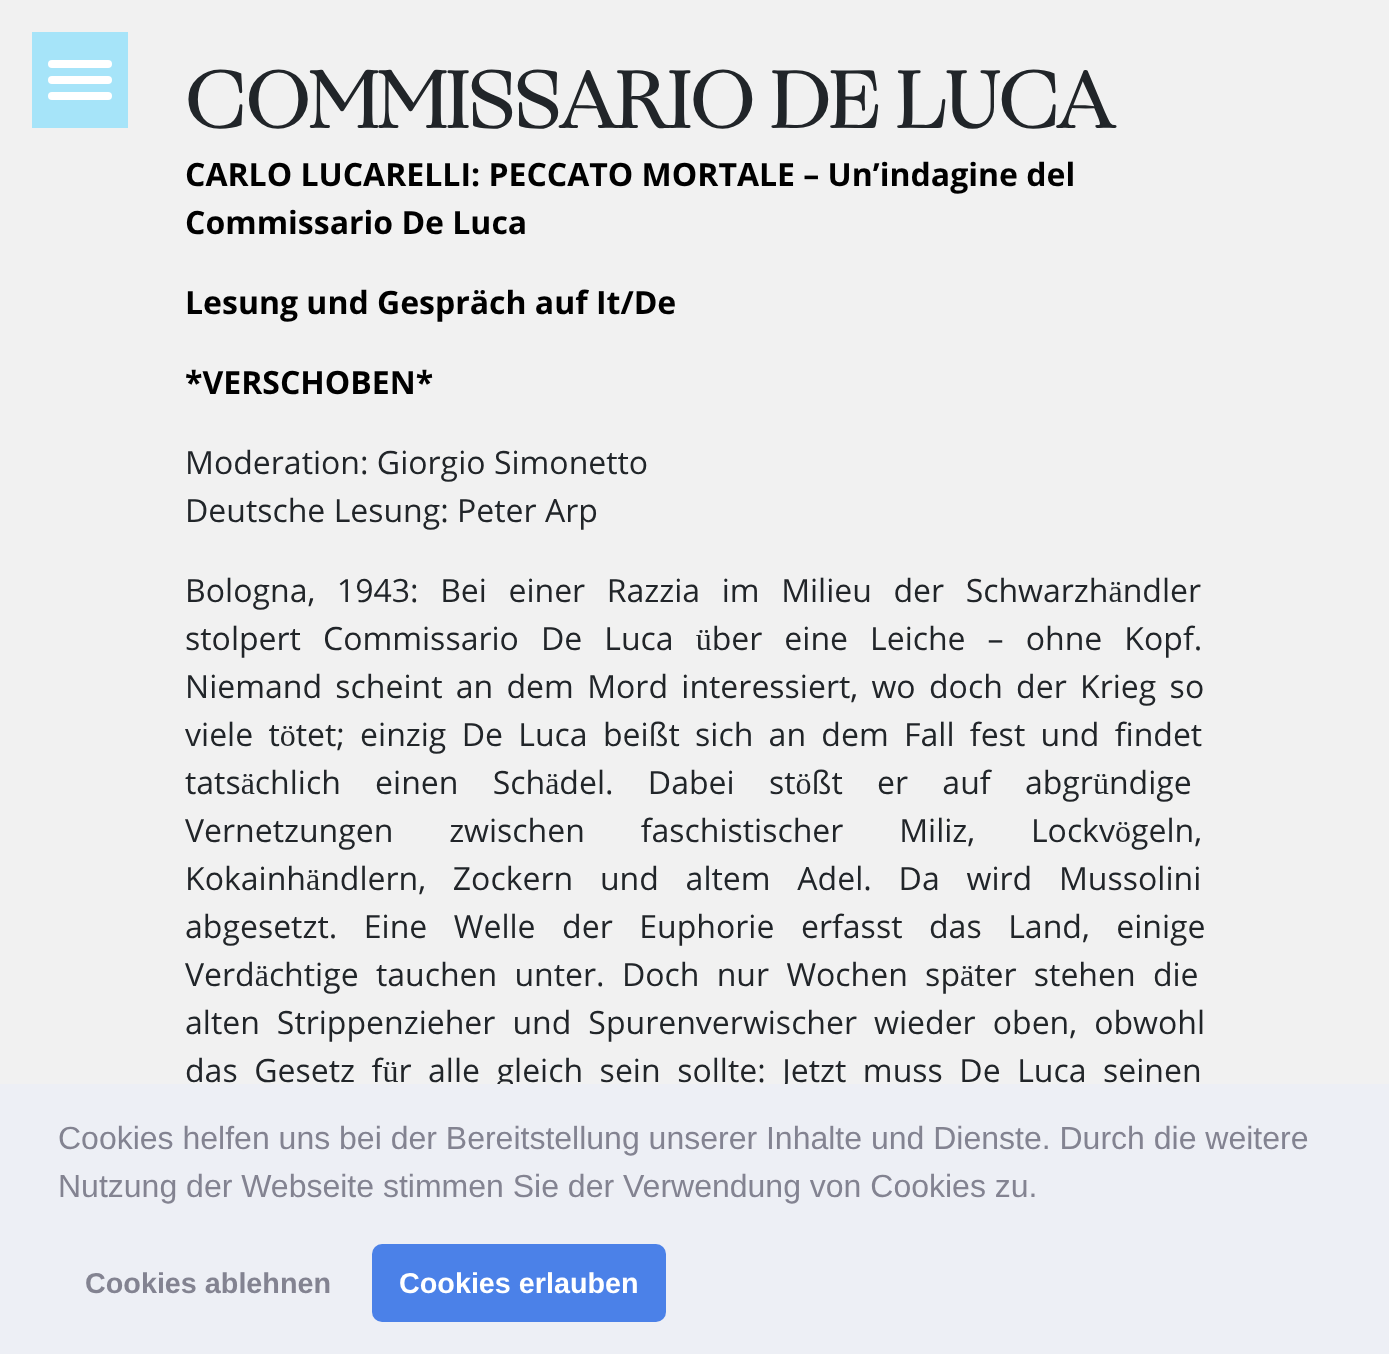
async function draw(canvas) {
  canvas.width = 1389
  canvas.height = 1354
  const ctx = canvas.getContext('2d')
  ctx.miterLimit = 4
  ctx.fontKerning = 'normal'

  ctx.fillStyle = '#f1f1f1'
  ctx.fillRect(0, 0, 1389, 1354)
  ctx.fillStyle = '#a6e4f9'
  ctx.fillRect(32, 32, 96, 96)
  ctx.fillStyle = '#fff'
  ctx.beginPath()
  ctx.roundRect(48, 60, 64, 8, 4)
  ctx.fill()
  ctx.beginPath()
  ctx.roundRect(48, 76, 64, 8, 4)
  ctx.fill()
  ctx.beginPath()
  ctx.roundRect(48, 92, 64, 8, 4)
  ctx.fill()
  ctx.font = 'bold 80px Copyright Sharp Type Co'
  ctx.fillStyle = '#212529'
  ctx.fillText('COMMISSARIO DE LUCA', 185, 128)
  ctx.font = 'bold 32px Open Sans'
  ctx.fillStyle = '#000'
  ctx.fillText('CARLO LUCARELLI: PECCATO MORTALE – Un’indagine del', 185, 186)
  ctx.fillText('Commissario De Luca', 185, 234)
  ctx.fillText('Lesung und Gespräch auf It/De', 185, 314)
  ctx.fillText('*VERSCHOBEN*', 185, 394)
  ctx.font = '32px Open Sans'
  ctx.fillStyle = '#212529'
  ctx.fillText('Moderation: Giorgio Simonetto', 185, 474)
  ctx.fillText('Deutsche Lesung: Peter Arp', 185, 522)
  ctx.wordSpacing = '13.25px'
  ctx.fillText('Bologna, 1943: Bei einer Razzia im Milieu der Schwarzhändler', 185, 602)
  ctx.wordSpacing = '13.75px'
  ctx.fillText('stolpert Commissario De Luca über eine Leiche – ohne Kopf.', 185, 650)
  ctx.wordSpacing = '5px'
  ctx.fillText('Niemand scheint an dem Mord interessiert, wo doch der Krieg so', 185, 698)
  ctx.wordSpacing = '7px'
  ctx.fillText('viele tötet; einzig De Luca beißt sich an dem Fall fest und findet', 185, 746)
  ctx.wordSpacing = '26px'
  ctx.fillText('tatsächlich einen Schädel. Dabei stößt er auf abgründige', 185, 794)
  ctx.wordSpacing = '47.5px'
  ctx.fillText('Vernetzungen zwischen faschistischer Miliz, Lockvögeln,', 185, 842)
  ctx.wordSpacing = '18.5px'
  ctx.fillText('Kokainhändlern, Zockern und altem Adel. Da wird Mussolini', 185, 890)
  ctx.wordSpacing = '18.25px'
  ctx.fillText('abgesetzt. Eine Welle der Euphorie erfasst das Land, einige', 185, 938)
  ctx.wordSpacing = '9px'
  ctx.fillText('Verdächtige tauchen unter. Doch nur Wochen später stehen die', 185, 986)
  ctx.wordSpacing = '8.75px'
  ctx.fillText('alten Strippenzieher und Spurenverwischer wieder oben, obwohl', 185, 1034)
  ctx.wordSpacing = '8.25px'
  ctx.fillText('das Gesetz für alle gleich sein sollte: Jetzt muss De Luca seinen', 185, 1082)
  ctx.fillStyle = '#edeff5'
  ctx.fillRect(0, 1084, 1389, 270)
  ctx.wordSpacing = '0px'
  ctx.font = '32px Liberation Sans'
  ctx.fillStyle = '#838391'
  ctx.fillText('Cookies helfen uns bei der Bereitstellung unserer Inhalte und Dienste. Durch die weitere', 58, 1149)
  ctx.fillText('Nutzung der Webseite stimmen Sie der Verwendung von Cookies zu.', 58, 1197)
  ctx.font = 'bold 28.75px Liberation Sans'
  ctx.fillText('Cookies ablehnen', 85, 1293)
  ctx.fillStyle = '#4b81e8'
  ctx.beginPath()
  ctx.roundRect(372, 1244, 294, 78, 10)
  ctx.fill()
  ctx.fillStyle = '#fff'
  ctx.fillText('Cookies erlauben', 399, 1293)
}

draw(document.querySelector('canvas'))
